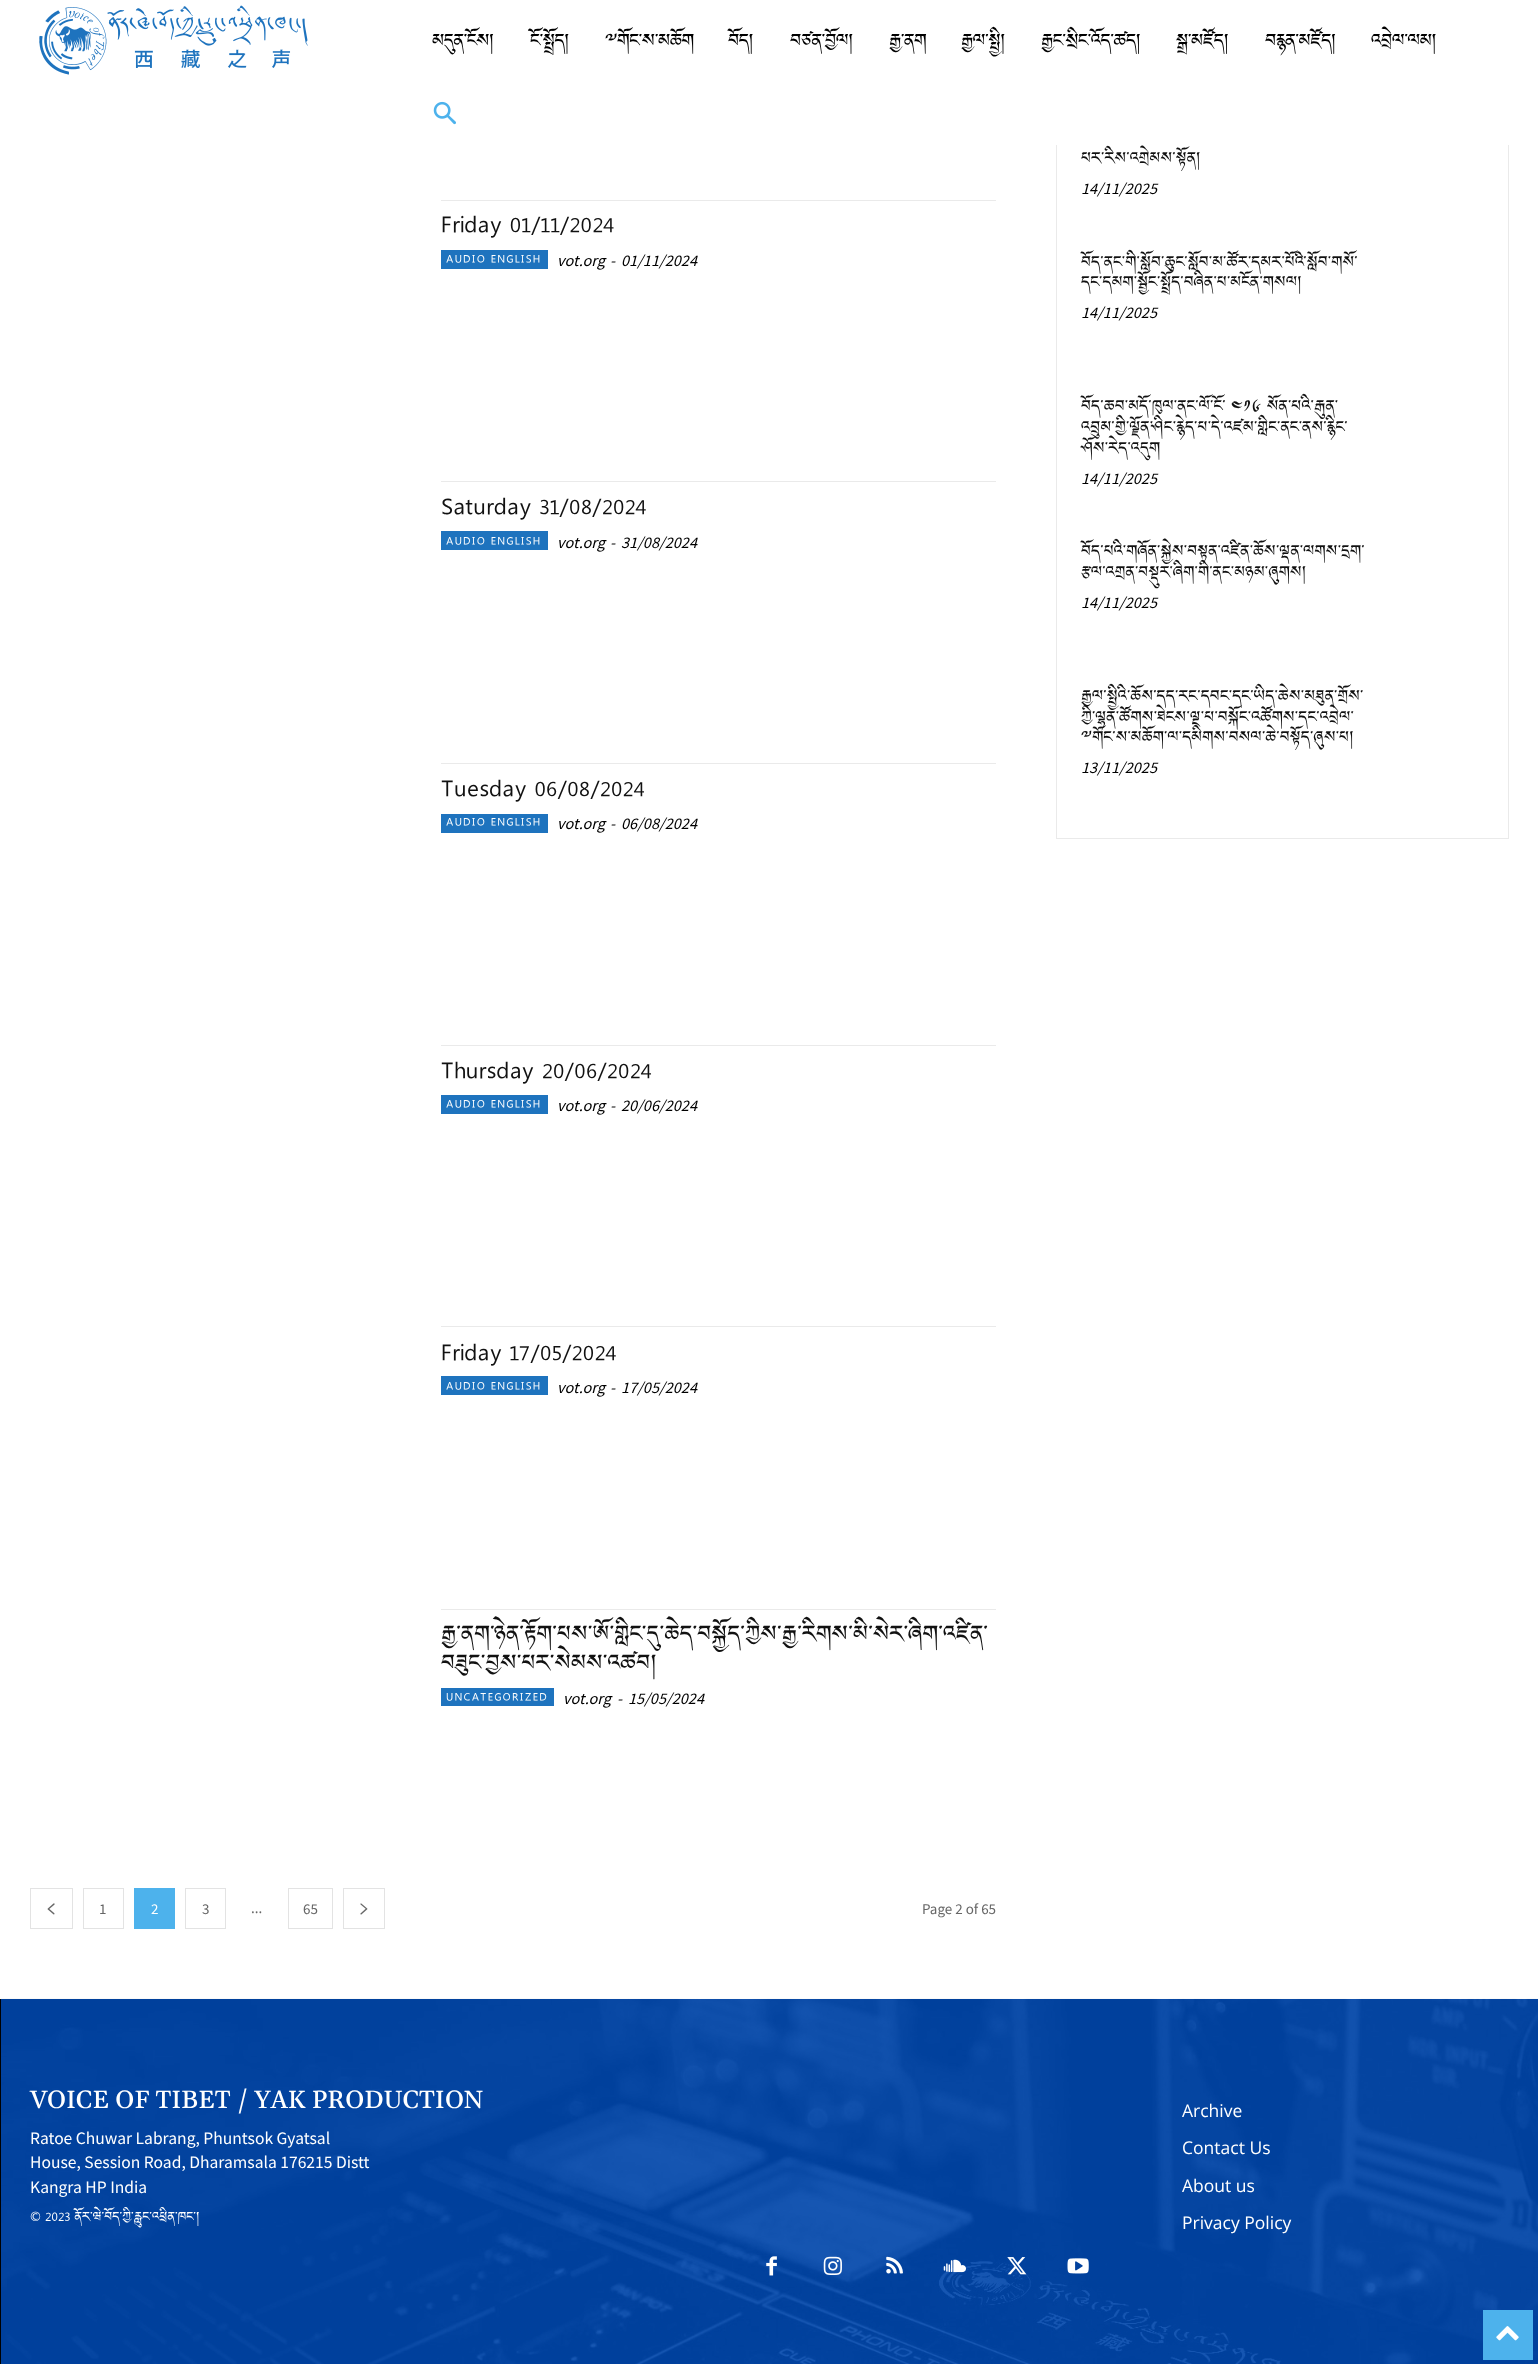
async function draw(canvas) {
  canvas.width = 1538
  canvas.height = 2364
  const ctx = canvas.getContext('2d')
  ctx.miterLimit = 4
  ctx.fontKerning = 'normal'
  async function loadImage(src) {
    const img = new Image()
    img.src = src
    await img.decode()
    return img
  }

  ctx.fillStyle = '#fff'
  ctx.fillRect(0, 0, 1538, 2364)
  ctx.strokeStyle = '#eaeaea'
  ctx.strokeRect(1056.5, 25.5, 452, 813)
  ctx.fillStyle = '#fffffff7'
  ctx.fillRect(1056, 25, 453, 120)
  ctx.drawImage(await loadImage('image0.png'), 39, 5, 269, 70)
  ctx.letterSpacing = '-0.6px'
  ctx.font = '21.25px "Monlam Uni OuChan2"'
  ctx.fillStyle = '#000'
  ctx.fillText('མདུན་ངོས།', 432, 44)
  ctx.fillText('ངོ་སྤྲོད།', 530, 44)
  ctx.fillText('༸གོང་ས་མཆོག', 605, 44)
  ctx.fillText('བོད།', 728, 44)
  ctx.fillText('བཙན་བྱོལ།', 790, 44)
  ctx.fillText('རྒྱ་ནག', 889, 44)
  ctx.fillText('རྒྱལ་སྤྱི།', 961, 44)
  ctx.fillText('རྒྱང་སྲིང་འོད་ཚད།', 1041, 44)
  ctx.fillText('སྒྲ་མཛོད།', 1176, 44)
  ctx.fillText('བརྙན་མཛོད།', 1265, 44)
  ctx.fillText('འབྲེལ་ལམ།', 1371, 44)
  ctx.drawImage(await loadImage('image1.png'), 433, 101, 23, 24)
  ctx.fillStyle = '#eaeaea'
  ctx.fillRect(441, 200, 555, 1)
  ctx.letterSpacing = '0px'
  ctx.font = '26.25px "Monlam Uni OuChan2"'
  ctx.fillStyle = '#111'
  ctx.fillText('Friday 01/11/2024', 441, 229)
  ctx.fillStyle = '#1e73be'
  ctx.fillRect(441, 250, 107, 19)
  ctx.letterSpacing = '1.25px'
  ctx.font = '12.5px "Monlam Uni OuChan2"'
  ctx.fillStyle = '#fff'
  ctx.fillText('AUDIO ENGLISH', 446, 261)
  ctx.letterSpacing = '0px'
  ctx.font = 'italic 16.25px Source Sans Pro'
  ctx.fillStyle = '#000'
  ctx.fillText('vot.org', 557, 266)
  ctx.fillText('-', 610, 266)
  ctx.fillText('01/11/2024', 621, 266)
  ctx.fillStyle = '#eaeaea'
  ctx.fillRect(441, 481, 555, 1)
  ctx.font = '26.25px "Monlam Uni OuChan2"'
  ctx.fillStyle = '#111'
  ctx.fillText('Saturday 31/08/2024', 441, 511)
  ctx.fillStyle = '#1e73be'
  ctx.fillRect(441, 531, 107, 19)
  ctx.letterSpacing = '1.25px'
  ctx.font = '12.5px "Monlam Uni OuChan2"'
  ctx.fillStyle = '#fff'
  ctx.fillText('AUDIO ENGLISH', 446, 543)
  ctx.letterSpacing = '0px'
  ctx.font = 'italic 16.25px Source Sans Pro'
  ctx.fillStyle = '#000'
  ctx.fillText('vot.org', 557, 548)
  ctx.fillText('-', 610, 548)
  ctx.fillText('31/08/2024', 621, 548)
  ctx.fillStyle = '#eaeaea'
  ctx.fillRect(441, 763, 555, 1)
  ctx.font = '26.25px "Monlam Uni OuChan2"'
  ctx.fillStyle = '#111'
  ctx.fillText('Tuesday 06/08/2024', 441, 793)
  ctx.fillStyle = '#1e73be'
  ctx.fillRect(441, 814, 107, 19)
  ctx.letterSpacing = '1.25px'
  ctx.font = '12.5px "Monlam Uni OuChan2"'
  ctx.fillStyle = '#fff'
  ctx.fillText('AUDIO ENGLISH', 446, 824)
  ctx.letterSpacing = '0px'
  ctx.font = 'italic 16.25px Source Sans Pro'
  ctx.fillStyle = '#000'
  ctx.fillText('vot.org', 557, 829)
  ctx.fillText('-', 610, 829)
  ctx.fillText('06/08/2024', 621, 829)
  ctx.fillStyle = '#eaeaea'
  ctx.fillRect(441, 1045, 555, 1)
  ctx.font = '26.25px "Monlam Uni OuChan2"'
  ctx.fillStyle = '#111'
  ctx.fillText('Thursday 20/06/2024', 441, 1075)
  ctx.fillStyle = '#1e73be'
  ctx.fillRect(441, 1095, 107, 19)
  ctx.letterSpacing = '1.25px'
  ctx.font = '12.5px "Monlam Uni OuChan2"'
  ctx.fillStyle = '#fff'
  ctx.fillText('AUDIO ENGLISH', 446, 1106)
  ctx.letterSpacing = '0px'
  ctx.font = 'italic 16.25px Source Sans Pro'
  ctx.fillStyle = '#000'
  ctx.fillText('vot.org', 557, 1111)
  ctx.fillText('-', 610, 1111)
  ctx.fillText('20/06/2024', 621, 1111)
  ctx.fillStyle = '#eaeaea'
  ctx.fillRect(441, 1326, 555, 1)
  ctx.font = '26.25px "Monlam Uni OuChan2"'
  ctx.fillStyle = '#111'
  ctx.fillText('Friday 17/05/2024', 441, 1357)
  ctx.fillStyle = '#1e73be'
  ctx.fillRect(441, 1376, 107, 19)
  ctx.letterSpacing = '1.25px'
  ctx.font = '12.5px "Monlam Uni OuChan2"'
  ctx.fillStyle = '#fff'
  ctx.fillText('AUDIO ENGLISH', 446, 1388)
  ctx.letterSpacing = '0px'
  ctx.font = 'italic 16.25px Source Sans Pro'
  ctx.fillStyle = '#000'
  ctx.fillText('vot.org', 557, 1393)
  ctx.fillText('-', 610, 1393)
  ctx.fillText('17/05/2024', 621, 1393)
  ctx.fillStyle = '#eaeaea'
  ctx.fillRect(441, 1609, 555, 1)
  ctx.font = '26.25px "Monlam Uni OuChan2"'
  ctx.fillStyle = '#111'
  ctx.fillText('རྒྱ་ནག་ཉེན་རྟོག་པས་ཨོ་གླིང་དུ་ཆེད་བསྐྱོད་ཀྱིས་རྒྱ་རིགས་མི་སེར་ཞིག་འཛིན་', 441, 1638)
  ctx.fillText('བཟུང་བྱས་པར་སེམས་འཚབ།', 441, 1667)
  ctx.fillStyle = '#1e73be'
  ctx.fillRect(441, 1688, 113, 18)
  ctx.letterSpacing = '1.25px'
  ctx.font = '12.5px "Monlam Uni OuChan2"'
  ctx.fillStyle = '#fff'
  ctx.fillText('UNCATEGORIZED', 446, 1699)
  ctx.letterSpacing = '0px'
  ctx.font = 'italic 16.25px Source Sans Pro'
  ctx.fillStyle = '#000'
  ctx.fillText('vot.org', 563, 1704)
  ctx.fillText('-', 617, 1704)
  ctx.fillText('15/05/2024', 628, 1704)
  ctx.strokeStyle = '#e3e3e3'
  ctx.strokeRect(30.5, 1888.5, 42, 40)
  ctx.drawImage(await loadImage('image2.png'), 47, 1903, 8, 12)
  ctx.strokeRect(83.5, 1888.5, 40, 40)
  ctx.font = '15px Source Sans Pro'
  ctx.fillStyle = '#666'
  ctx.fillText('1', 99, 1914)
  ctx.fillStyle = '#4db2ec'
  ctx.fillRect(134, 1888, 41, 41)
  ctx.fillStyle = '#fff'
  ctx.fillText('2', 151, 1914)
  ctx.strokeRect(185.5, 1888.5, 40, 40)
  ctx.fillStyle = '#666'
  ctx.fillText('3', 202, 1914)
  ctx.fillText('...', 251, 1913)
  ctx.strokeRect(288.5, 1888.5, 44, 40)
  ctx.fillText('65', 303, 1914)
  ctx.strokeRect(343.5, 1888.5, 41, 40)
  ctx.drawImage(await loadImage('image3.png'), 360, 1903, 8, 12)
  ctx.fillText('Page 2 of 65', 922, 1914)
  ctx.font = '18.75px "Monlam Uni OuChan2"'
  ctx.fillStyle = '#111'
  ctx.fillText('པར་རིས་འགྲེམས་སྟོན།', 1081, 161)
  ctx.font = 'italic 16.25px Source Sans Pro'
  ctx.fillStyle = '#000'
  ctx.fillText('14/11/2025', 1081, 194)
  ctx.font = '18.75px "Monlam Uni OuChan2"'
  ctx.fillStyle = '#111'
  ctx.fillText('བོད་ནང་གི་སློབ་ཆུང་སློབ་མ་ཚོར་དམར་པོའི་སློབ་གསོ་', 1081, 265)
  ctx.fillText('དང་དམག་སྦྱོང་སྤྲོད་བཞིན་པ་མངོན་གསལ།', 1081, 285)
  ctx.font = 'italic 16.25px Source Sans Pro'
  ctx.fillStyle = '#000'
  ctx.fillText('14/11/2025', 1081, 318)
  ctx.font = '18.75px "Monlam Uni OuChan2"'
  ctx.fillStyle = '#111'
  ctx.fillText('བོད་ཆབ་མདོ་ཁུལ་ནང་ལོ་ངོ་ ༤༡༦ སོན་པའི་རྒུན་', 1081, 409)
  ctx.fillText('འབྲུམ་གྱི་ལྗོན་ཤིང་རྙེད་པ་དེ་འཛམ་གླིང་ནང་ནས་རྙིང་', 1081, 430)
  ctx.fillText('ཤོས་རེད་འདུག', 1081, 451)
  ctx.font = 'italic 16.25px Source Sans Pro'
  ctx.fillStyle = '#000'
  ctx.fillText('14/11/2025', 1081, 484)
  ctx.font = '18.75px "Monlam Uni OuChan2"'
  ctx.fillStyle = '#111'
  ctx.fillText('བོད་པའི་གཞོན་སྐྱེས་བསྟན་འཛིན་ཆོས་ལྡན་ལགས་དྲག་', 1081, 554)
  ctx.fillText('རྩལ་འགྲན་བསྡུར་ཞིག་གི་ནང་མཉམ་ཞུགས།', 1081, 575)
  ctx.font = 'italic 16.25px Source Sans Pro'
  ctx.fillStyle = '#000'
  ctx.fillText('14/11/2025', 1081, 608)
  ctx.font = '18.75px "Monlam Uni OuChan2"'
  ctx.fillStyle = '#111'
  ctx.fillText('རྒྱལ་སྤྱིའི་ཆོས་དད་རང་དབང་དང་ཡིད་ཆེས་མཐུན་གྲོས་', 1081, 699)
  ctx.fillText('ཀྱི་ལྷན་ཚོགས་ཐེངས་ལྔ་པ་བསྐོང་འཚོགས་དང་འབྲེལ་', 1081, 720)
  ctx.fillText('༸གོང་ས་མཆོག་ལ་དམིགས་བསལ་ཆེ་བསྟོད་ཞུས་པ།', 1081, 740)
  ctx.font = 'italic 16.25px Source Sans Pro'
  ctx.fillStyle = '#000'
  ctx.fillText('13/11/2025', 1081, 773)
  ctx.fillRect(0, 1999, 1, 365)
  ctx.fillStyle = '#0048ae'
  ctx.fillRect(1, 1999, 1537, 365)
  ctx.drawImage(await loadImage('image4.png'), 1, 1998, 1537, 366)
  ctx.font = '500 25px Gelasio'
  ctx.fillStyle = '#fff'
  ctx.fillText('VOICE OF TIBET / YAK PRODUCTION', 30, 2108)
  ctx.font = '17.5px Source Sans Pro'
  ctx.fillText('Ratoe Chuwar Labrang, Phuntsok Gyatsal', 30, 2144)
  ctx.fillText('House, Session Road, Dharamsala 176215 Distt', 30, 2168)
  ctx.fillText('Kangra HP India', 30, 2193)
  ctx.font = '15px "Monlam Uni OuChan2"'
  ctx.fillText('© 2023 ནོར་ཝེ་བོད་ཀྱི་རླུང་འཕྲིན་ཁང་།', 30, 2219)
  ctx.font = '17.5px Open Sans'
  ctx.fillText('Archive', 1182, 2117)
  ctx.fillText('Contact Us', 1182, 2154)
  ctx.fillText('About us', 1182, 2192)
  ctx.fillText('Privacy Policy', 1182, 2229)
  ctx.drawImage(await loadImage('image5.png'), 766, 2256, 11, 20)
  ctx.drawImage(await loadImage('image6.png'), 823, 2256, 19, 19)
  ctx.drawImage(await loadImage('image7.png'), 886, 2256, 17, 18)
  ctx.drawImage(await loadImage('image8.png'), 943, 2259, 23, 14)
  ctx.drawImage(await loadImage('image9.png'), 1007, 2257, 20, 18)
  ctx.drawImage(await loadImage('image10.png'), 1067, 2258, 22, 16)
  ctx.fillStyle = '#4db2ec'
  ctx.fillRect(1483, 2310, 50, 50)
  ctx.drawImage(await loadImage('image11.png'), 1496, 2326, 23, 15)
}

draw(document.querySelector('canvas'))
